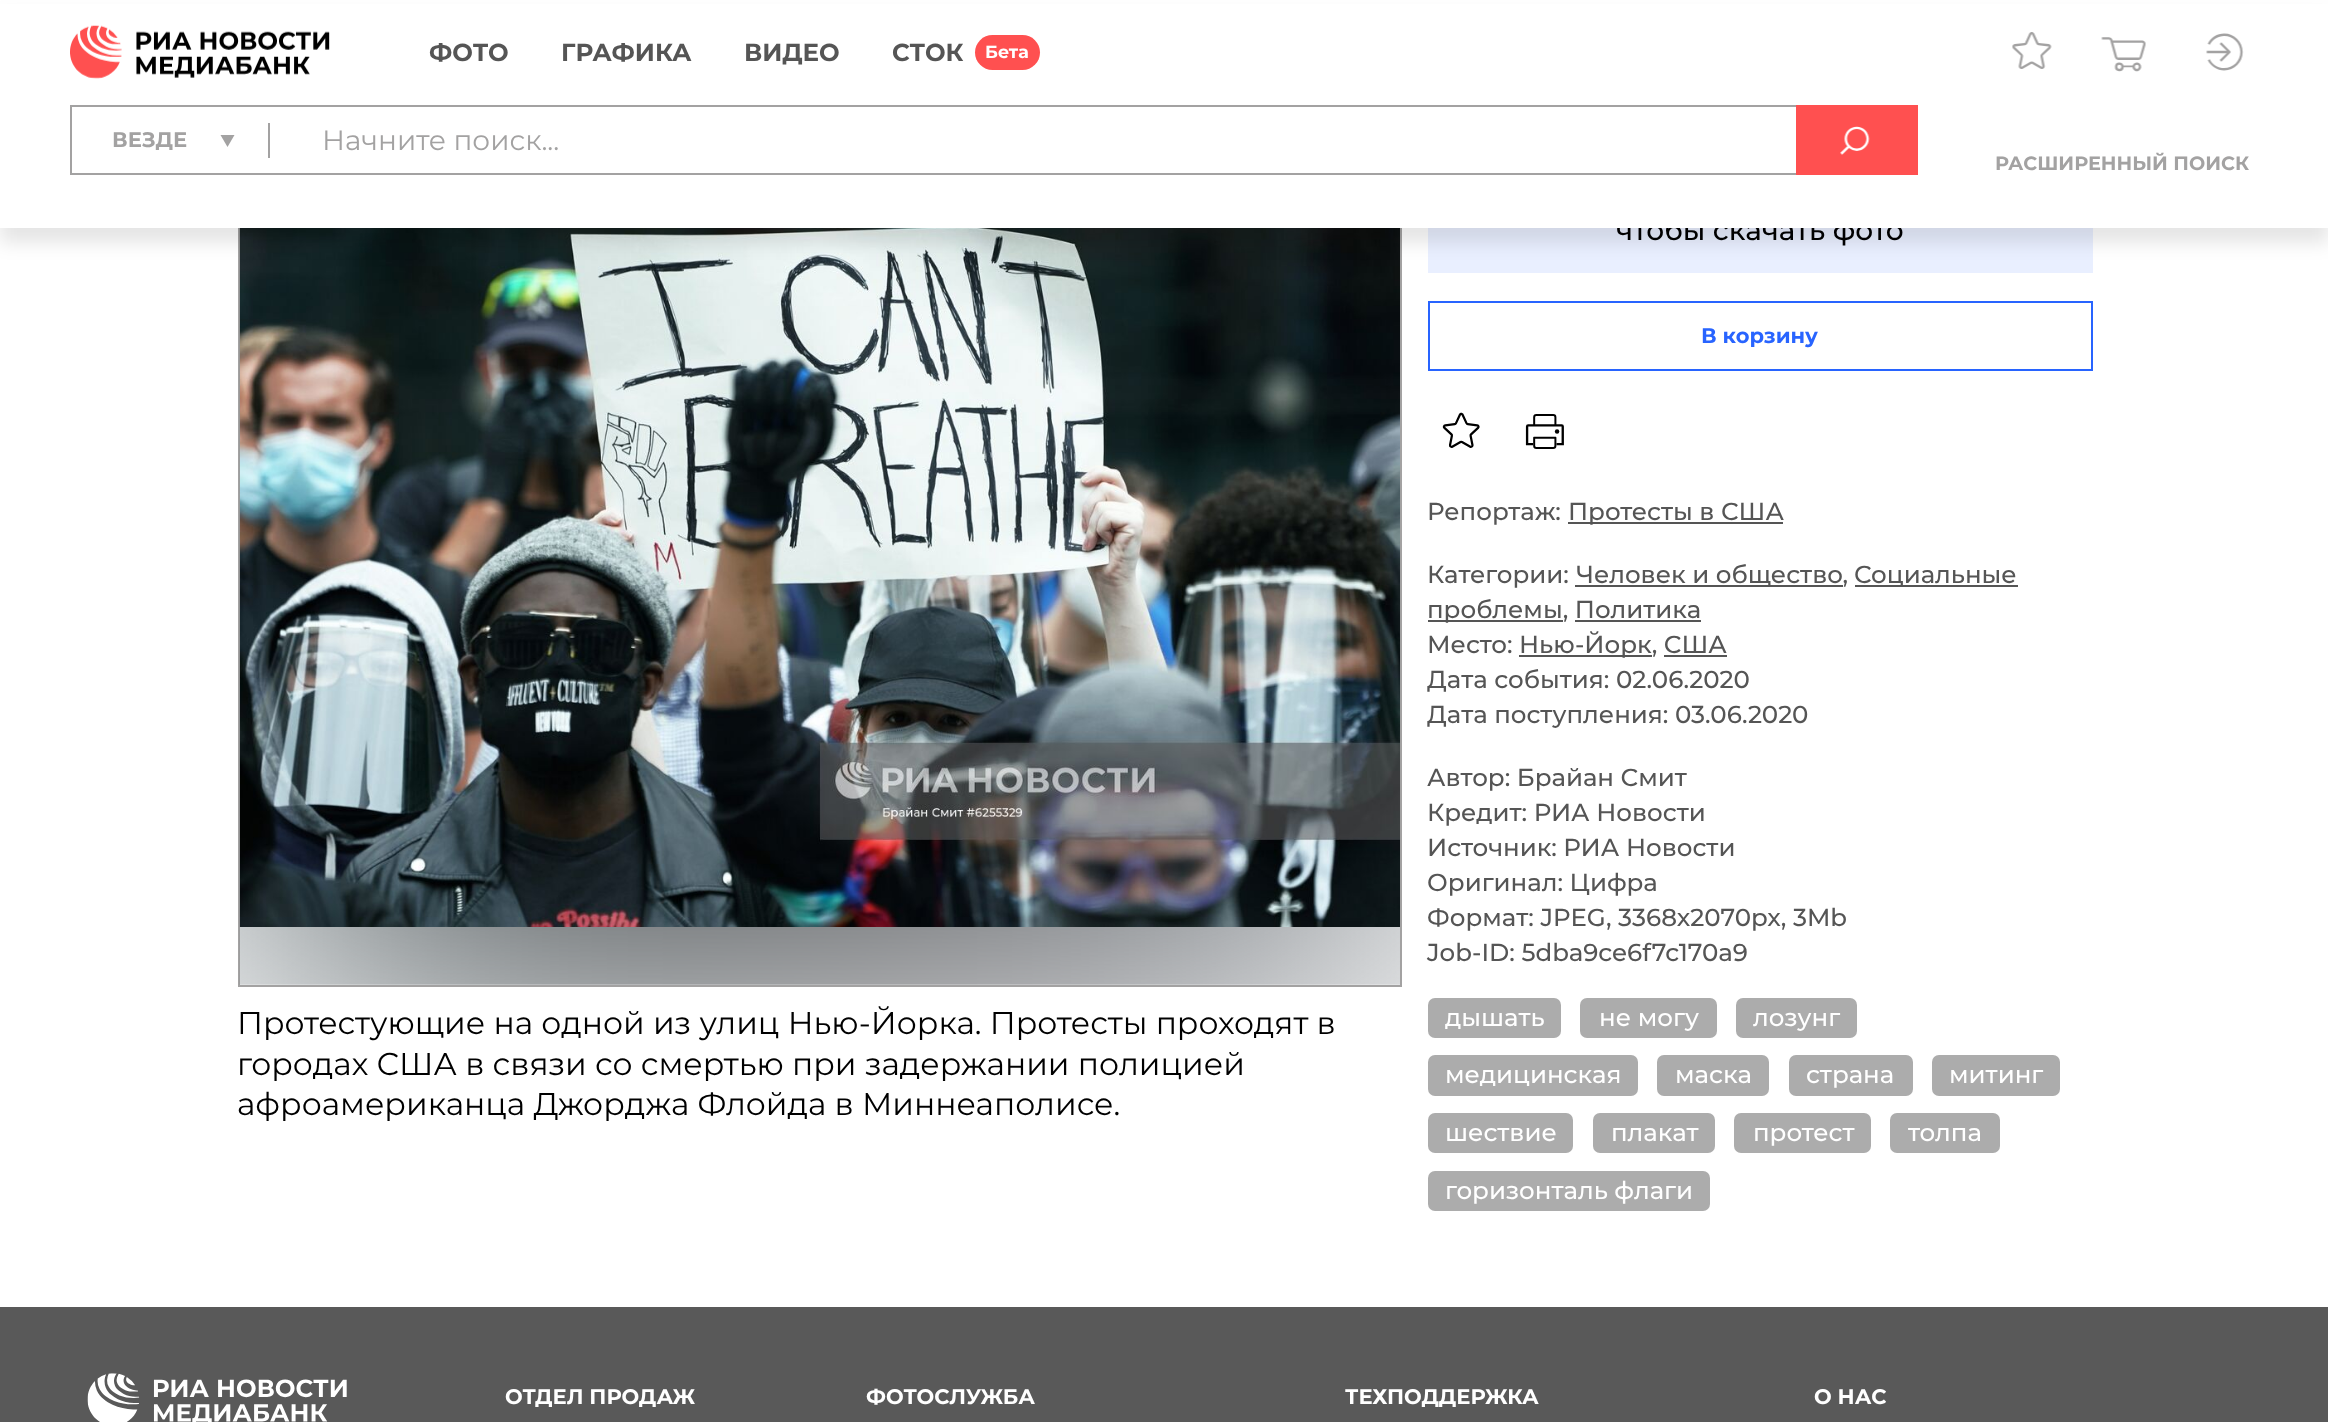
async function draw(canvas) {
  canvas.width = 2328
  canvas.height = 1422
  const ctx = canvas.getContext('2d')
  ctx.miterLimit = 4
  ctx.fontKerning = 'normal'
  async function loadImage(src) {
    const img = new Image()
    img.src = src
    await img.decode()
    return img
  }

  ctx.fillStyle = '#fff'
  ctx.fillRect(0, 0, 2328, 1422)
  ctx.strokeStyle = '#a3a2a2'
  ctx.lineWidth = 2
  ctx.strokeRect(239, 155, 1162, 831)
  ctx.drawImage(await loadImage('image5.png'), 239, 228, 1161, 757)
  ctx.drawImage(await loadImage('image6.png'), 239, 228, 1161, 699)
  ctx.fillStyle = '#e9efff'
  ctx.fillRect(1428, 228, 665, 45)
  ctx.fillStyle = '#0000001a'
  ctx.filter = 'blur(9px)'
  ctx.beginPath()
  ctx.rect(0, 16, 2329, 227)
  ctx.fill()
  ctx.filter = 'none'
  ctx.font = '500 28px Montserrat'
  ctx.fillStyle = '#000'
  ctx.fillText('чтобы скачать фото', 1616, 240)
  ctx.fillStyle = '#fff'
  ctx.fillRect(0, 4, 2328, 224)
  ctx.drawImage(await loadImage('image0.png'), 70, 25, 260, 54)
  ctx.font = 'bold 24.5px Montserrat'
  ctx.fillStyle = '#555'
  ctx.fillText('ФОТО', 429, 61)
  ctx.fillText('ГРАФИКА', 561, 61)
  ctx.fillText('ВИДЕО', 744, 61)
  ctx.fillText('СТОК', 892, 61)
  ctx.fillStyle = '#ff5050'
  ctx.beginPath()
  ctx.roundRect(975, 35, 65, 35, 17.5)
  ctx.fill()
  ctx.font = 'bold 17.5px Montserrat'
  ctx.fillStyle = '#fff'
  ctx.fillText('Бета', 985, 58)
  ctx.drawImage(await loadImage('image1.png'), 2012, 32, 40, 37)
  ctx.drawImage(await loadImage('image2.png'), 2101, 37, 45, 35)
  ctx.drawImage(await loadImage('image3.png'), 2206, 33, 38, 38)
  ctx.fillStyle = '#a3a2a2'
  ctx.fillRect(70, 105, 1726, 2)
  ctx.fillRect(70, 173, 1726, 2)
  ctx.fillRect(70, 105, 2, 70)
  ctx.font = 'bold 21px Montserrat'
  ctx.fillText('ВЕЗДЕ', 112, 147)
  ctx.beginPath()
  ctx.moveTo(220.5, 135)
  ctx.lineTo(234.5, 135)
  ctx.lineTo(227.5, 147)
  ctx.closePath()
  ctx.fill()
  ctx.fillRect(268, 123, 2, 35)
  ctx.font = '28px Montserrat'
  ctx.fillText('Начните поиск...', 322, 150)
  ctx.fillStyle = '#ff5050'
  ctx.fillRect(1796, 105, 122, 70)
  ctx.drawImage(await loadImage('image4.png'), 1840, 126, 30, 29)
  ctx.font = 'bold 19.25px Montserrat'
  ctx.fillStyle = '#a3a2a2'
  ctx.fillText('РАСШИРЕННЫЙ ПОИСК', 1995, 170)
  ctx.font = '31.5px Montserrat'
  ctx.fillStyle = '#000'
  ctx.fillText('Протестующие на одной из улиц Нью-Йорка. Протесты проходят в', 237, 1034)
  ctx.fillText('городах США в связи со смертью при задержании полицией', 237, 1075)
  ctx.fillText('афроамериканца Джорджа Флойда в Миннеаполисе.', 237, 1115)
  ctx.strokeStyle = '#2864ff'
  ctx.strokeRect(1429, 302, 663, 68)
  ctx.font = 'bold 21px Montserrat'
  ctx.fillStyle = '#2864ff'
  ctx.fillText('В корзину', 1701, 343)
  ctx.drawImage(await loadImage('image7.png'), 1442, 412, 38, 36)
  ctx.drawImage(await loadImage('image8.png'), 1525, 414, 39, 35)
  ctx.font = '500 24.5px Montserrat'
  ctx.fillStyle = '#555'
  ctx.fillText('Репортаж:', 1427, 520)
  ctx.fillRect(1568, 522, 215, 2)
  ctx.fillText('Протесты в США', 1568, 520)
  ctx.fillText('Категории:', 1427, 583)
  ctx.fillRect(1575, 585, 268, 2)
  ctx.fillText('Человек и общество,', 1576, 583)
  ctx.fillRect(1855, 585, 163, 2)
  ctx.fillText('Социальные', 1854, 583)
  ctx.fillRect(1428, 620, 135, 2)
  ctx.fillText('проблемы, Политика', 1427, 618)
  ctx.fillRect(1575, 620, 126, 2)
  ctx.fillText('Место:', 1427, 653)
  ctx.fillRect(1519, 655, 133, 2)
  ctx.fillText('Нью-Йорк, США', 1519, 653)
  ctx.fillRect(1664, 655, 63, 2)
  ctx.fillText('Дата события: 02.06.2020', 1427, 688)
  ctx.fillText('Дата поступления: 03.06.2020', 1427, 723)
  ctx.fillText('Автор: Брайан Смит', 1427, 786)
  ctx.fillText('Кредит: РИА Новости', 1427, 821)
  ctx.fillText('Источник: РИА Новости', 1427, 856)
  ctx.fillText('Оригинал: Цифра', 1427, 891)
  ctx.fillText('Формат: JPEG, 3368x2070px, 3Mb', 1427, 926)
  ctx.fillText('Job-ID: 5dba9ce6f7c170a9', 1427, 961)
  ctx.fillStyle = '#acacac'
  ctx.beginPath()
  ctx.roundRect(1428, 998, 133, 40, 7)
  ctx.fill()
  ctx.fillStyle = '#fff'
  ctx.fillText('дышать', 1445, 1026)
  ctx.fillStyle = '#acacac'
  ctx.beginPath()
  ctx.roundRect(1580, 998, 137, 40, 7)
  ctx.fill()
  ctx.fillStyle = '#fff'
  ctx.fillText('не могу', 1599, 1026)
  ctx.fillStyle = '#acacac'
  ctx.beginPath()
  ctx.roundRect(1736, 998, 121, 40, 7)
  ctx.fill()
  ctx.fillStyle = '#fff'
  ctx.fillText('лозунг', 1753, 1026)
  ctx.fillStyle = '#acacac'
  ctx.beginPath()
  ctx.roundRect(1428, 1055, 210, 41, 7)
  ctx.fill()
  ctx.fillStyle = '#fff'
  ctx.fillText('медицинская', 1445, 1083)
  ctx.fillStyle = '#acacac'
  ctx.beginPath()
  ctx.roundRect(1657, 1055, 112, 41, 7)
  ctx.fill()
  ctx.fillStyle = '#fff'
  ctx.fillText('маска', 1675, 1083)
  ctx.fillStyle = '#acacac'
  ctx.beginPath()
  ctx.roundRect(1789, 1055, 124, 41, 7)
  ctx.fill()
  ctx.fillStyle = '#fff'
  ctx.fillText('страна', 1806, 1083)
  ctx.fillStyle = '#acacac'
  ctx.beginPath()
  ctx.roundRect(1932, 1055, 128, 41, 7)
  ctx.fill()
  ctx.fillStyle = '#fff'
  ctx.fillText('митинг', 1949, 1083)
  ctx.fillStyle = '#acacac'
  ctx.beginPath()
  ctx.roundRect(1428, 1113, 145, 40, 7)
  ctx.fill()
  ctx.fillStyle = '#fff'
  ctx.fillText('шествие', 1445, 1141)
  ctx.fillStyle = '#acacac'
  ctx.beginPath()
  ctx.roundRect(1593, 1113, 122, 40, 7)
  ctx.fill()
  ctx.fillStyle = '#fff'
  ctx.fillText('плакат', 1611, 1141)
  ctx.fillStyle = '#acacac'
  ctx.beginPath()
  ctx.roundRect(1734, 1113, 137, 40, 7)
  ctx.fill()
  ctx.fillStyle = '#fff'
  ctx.fillText('протест', 1753, 1141)
  ctx.fillStyle = '#acacac'
  ctx.beginPath()
  ctx.roundRect(1890, 1113, 110, 40, 7)
  ctx.fill()
  ctx.fillStyle = '#fff'
  ctx.fillText('толпа', 1908, 1141)
  ctx.fillStyle = '#acacac'
  ctx.beginPath()
  ctx.roundRect(1428, 1171, 282, 40, 7)
  ctx.fill()
  ctx.fillStyle = '#fff'
  ctx.fillText('горизонталь флаги', 1445, 1199)
  ctx.fillStyle = '#595959'
  ctx.fillRect(0, 1307, 2328, 115)
  ctx.drawImage(await loadImage('image9.png'), 87, 1373, 260, 49)
  ctx.font = 'bold 21px Montserrat'
  ctx.fillStyle = '#fff'
  ctx.fillText('ОТДЕЛ ПРОДАЖ', 505, 1404)
  ctx.fillText('ФОТОСЛУЖБА', 866, 1404)
  ctx.fillText('ТЕХПОДДЕРЖКА', 1345, 1404)
  ctx.fillText('О НАС', 1814, 1404)
}

draw(document.querySelector('canvas'))
